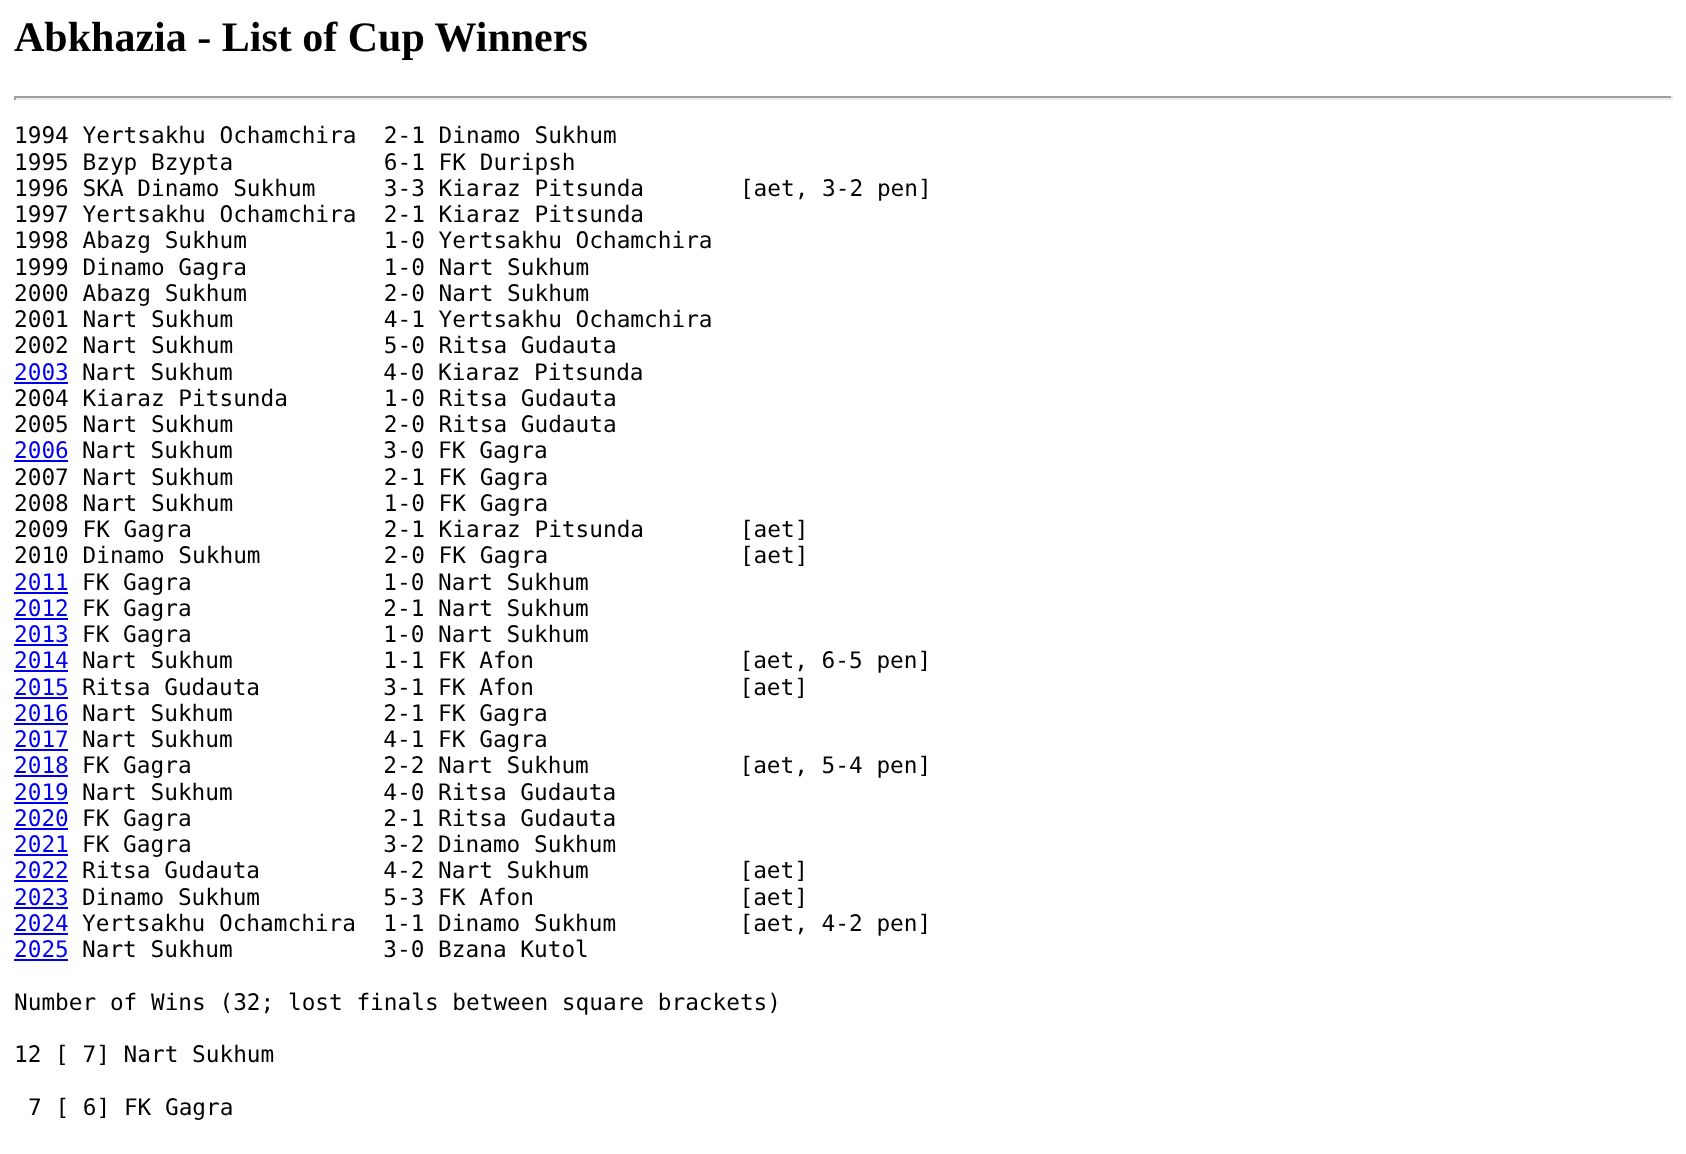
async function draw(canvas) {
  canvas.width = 1686
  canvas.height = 1154
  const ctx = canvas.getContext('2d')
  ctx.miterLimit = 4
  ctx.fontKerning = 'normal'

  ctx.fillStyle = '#fff'
  ctx.fillRect(0, 0, 1686, 1154)
  ctx.font = 'bold 42px Liberation Serif'
  ctx.fillStyle = '#000'
  ctx.fillText('Abkhazia - List of Cup Winners', 14, 51)
  ctx.fillStyle = '#9f9f9f'
  ctx.fillRect(14, 96, 1659, 2)
  ctx.fillStyle = '#eee'
  ctx.fillRect(1671, 96, 2, 4)
  ctx.fillRect(14, 98, 1659, 2)
  ctx.fillStyle = '#9f9f9f'
  ctx.fillRect(14, 96, 2, 4)
  ctx.font = '22.75px DejaVu Sans Mono'
  ctx.fillStyle = '#000'
  ctx.fillText('1994 Yertsakhu Ochamchira  2-1 Dinamo Sukhum', 14, 143)
  ctx.fillText('1995 Bzyp Bzypta           6-1 FK Duripsh', 14, 170)
  ctx.fillText('1996 SKA Dinamo Sukhum     3-3 Kiaraz Pitsunda       [aet, 3-2 pen]', 14, 196)
  ctx.fillText('1997 Yertsakhu Ochamchira  2-1 Kiaraz Pitsunda', 14, 222)
  ctx.fillText('1998 Abazg Sukhum          1-0 Yertsakhu Ochamchira', 14, 248)
  ctx.fillText('1999 Dinamo Gagra          1-0 Nart Sukhum', 14, 275)
  ctx.fillText('2000 Abazg Sukhum          2-0 Nart Sukhum', 14, 301)
  ctx.fillText('2001 Nart Sukhum           4-1 Yertsakhu Ochamchira', 14, 327)
  ctx.fillText('2002 Nart Sukhum           5-0 Ritsa Gudauta', 14, 353)
  ctx.fillStyle = '#00e'
  ctx.fillText('2003', 14, 380)
  ctx.fillRect(14, 382, 54, 2)
  ctx.fillStyle = '#000'
  ctx.fillText('Nart Sukhum           4-0 Kiaraz Pitsunda', 82, 380)
  ctx.fillText('2004 Kiaraz Pitsunda       1-0 Ritsa Gudauta', 14, 406)
  ctx.fillText('2005 Nart Sukhum           2-0 Ritsa Gudauta', 14, 432)
  ctx.fillStyle = '#00e'
  ctx.fillText('2006', 14, 458)
  ctx.fillRect(14, 460, 54, 2)
  ctx.fillStyle = '#000'
  ctx.fillText('Nart Sukhum           3-0 FK Gagra', 82, 458)
  ctx.fillText('2007 Nart Sukhum           2-1 FK Gagra', 14, 485)
  ctx.fillText('2008 Nart Sukhum           1-0 FK Gagra', 14, 511)
  ctx.fillText('2009 FK Gagra              2-1 Kiaraz Pitsunda       [aet]', 14, 537)
  ctx.fillText('2010 Dinamo Sukhum         2-0 FK Gagra              [aet]', 14, 563)
  ctx.fillStyle = '#00e'
  ctx.fillText('2011', 14, 590)
  ctx.fillRect(14, 592, 54, 2)
  ctx.fillStyle = '#000'
  ctx.fillText('FK Gagra              1-0 Nart Sukhum', 82, 590)
  ctx.fillStyle = '#00e'
  ctx.fillText('2012', 14, 616)
  ctx.fillRect(14, 618, 54, 2)
  ctx.fillStyle = '#000'
  ctx.fillText('FK Gagra              2-1 Nart Sukhum', 82, 616)
  ctx.fillStyle = '#00e'
  ctx.fillText('2013', 14, 642)
  ctx.fillRect(14, 644, 54, 2)
  ctx.fillStyle = '#000'
  ctx.fillText('FK Gagra              1-0 Nart Sukhum', 82, 642)
  ctx.fillStyle = '#00e'
  ctx.fillText('2014', 14, 668)
  ctx.fillRect(14, 670, 54, 2)
  ctx.fillStyle = '#000'
  ctx.fillText('Nart Sukhum           1-1 FK Afon               [aet, 6-5 pen]', 82, 668)
  ctx.fillStyle = '#00e'
  ctx.fillText('2015', 14, 695)
  ctx.fillRect(14, 697, 54, 2)
  ctx.fillStyle = '#000'
  ctx.fillText('Ritsa Gudauta         3-1 FK Afon               [aet]', 82, 695)
  ctx.fillStyle = '#00e'
  ctx.fillText('2016', 14, 721)
  ctx.fillRect(14, 723, 54, 2)
  ctx.fillStyle = '#000'
  ctx.fillText('Nart Sukhum           2-1 FK Gagra', 82, 721)
  ctx.fillStyle = '#00e'
  ctx.fillText('2017', 14, 747)
  ctx.fillRect(14, 749, 54, 2)
  ctx.fillStyle = '#000'
  ctx.fillText('Nart Sukhum           4-1 FK Gagra', 82, 747)
  ctx.fillStyle = '#00e'
  ctx.fillText('2018', 14, 773)
  ctx.fillRect(14, 775, 54, 2)
  ctx.fillStyle = '#000'
  ctx.fillText('FK Gagra              2-2 Nart Sukhum           [aet, 5-4 pen]', 82, 773)
  ctx.fillStyle = '#00e'
  ctx.fillText('2019', 14, 800)
  ctx.fillRect(14, 802, 54, 2)
  ctx.fillStyle = '#000'
  ctx.fillText('Nart Sukhum           4-0 Ritsa Gudauta', 82, 800)
  ctx.fillStyle = '#00e'
  ctx.fillText('2020', 14, 826)
  ctx.fillRect(14, 828, 54, 2)
  ctx.fillStyle = '#000'
  ctx.fillText('FK Gagra              2-1 Ritsa Gudauta', 82, 826)
  ctx.fillStyle = '#00e'
  ctx.fillText('2021', 14, 852)
  ctx.fillRect(14, 854, 54, 2)
  ctx.fillStyle = '#000'
  ctx.fillText('FK Gagra              3-2 Dinamo Sukhum', 82, 852)
  ctx.fillStyle = '#00e'
  ctx.fillText('2022', 14, 878)
  ctx.fillRect(14, 880, 54, 2)
  ctx.fillStyle = '#000'
  ctx.fillText('Ritsa Gudauta         4-2 Nart Sukhum           [aet]', 82, 878)
  ctx.fillStyle = '#00e'
  ctx.fillText('2023', 14, 905)
  ctx.fillRect(14, 907, 54, 2)
  ctx.fillStyle = '#000'
  ctx.fillText('Dinamo Sukhum         5-3 FK Afon               [aet]', 82, 905)
  ctx.fillStyle = '#00e'
  ctx.fillText('2024', 14, 931)
  ctx.fillRect(14, 933, 54, 2)
  ctx.fillStyle = '#000'
  ctx.fillText('Yertsakhu Ochamchira  1-1 Dinamo Sukhum         [aet, 4-2 pen]', 82, 931)
  ctx.fillStyle = '#00e'
  ctx.fillText('2025', 14, 957)
  ctx.fillRect(14, 959, 54, 2)
  ctx.fillStyle = '#000'
  ctx.fillText('Nart Sukhum           3-0 Bzana Kutol', 82, 957)
  ctx.fillText('Number of Wins (32; lost finals between square brackets)', 14, 1010)
  ctx.fillText('12 [ 7] Nart Sukhum', 14, 1062)
  ctx.fillText('7 [ 6] FK Gagra', 28, 1115)
}

draw(document.querySelector('canvas'))
